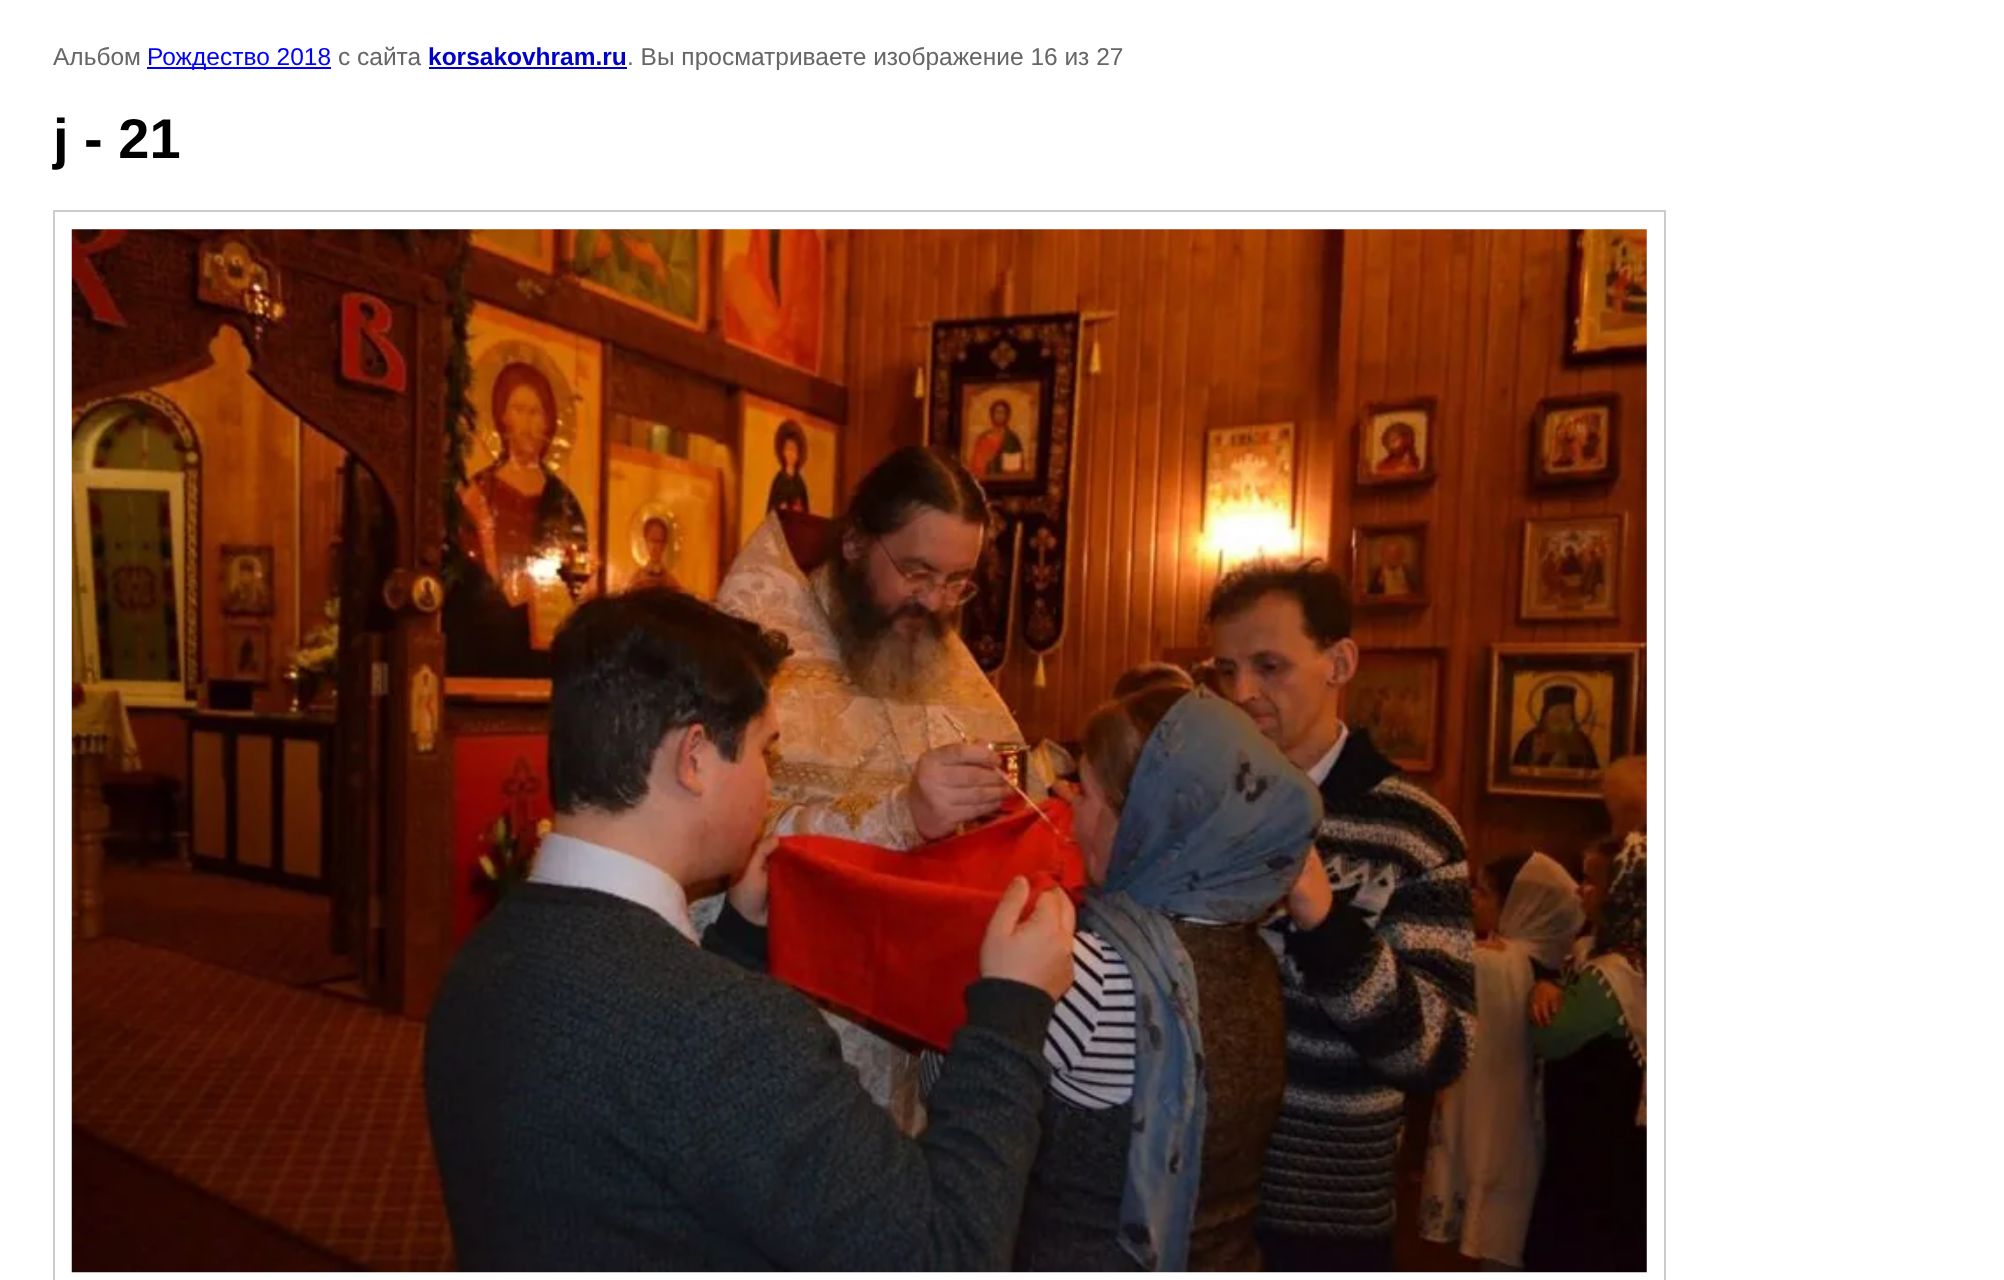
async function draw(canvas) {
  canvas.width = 2004
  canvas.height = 1280
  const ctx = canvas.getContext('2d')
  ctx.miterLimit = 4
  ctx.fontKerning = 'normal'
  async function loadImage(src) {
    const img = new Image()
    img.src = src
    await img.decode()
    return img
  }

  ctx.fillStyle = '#fff'
  ctx.fillRect(0, 0, 2004, 1280)
  ctx.font = '24.5px Liberation Sans'
  ctx.fillStyle = '#666'
  ctx.fillText('Альбом', 53, 65)
  ctx.fillStyle = '#00f'
  ctx.fillRect(147, 67, 184, 2)
  ctx.fillText('Рождество 2018', 147, 65)
  ctx.fillStyle = '#666'
  ctx.fillText('с сайта', 338, 65)
  ctx.font = 'bold 24.5px Liberation Sans'
  ctx.fillStyle = '#00c'
  ctx.fillText('korsakovhram.ru', 428, 65)
  ctx.fillRect(429, 67, 198, 2)
  ctx.font = '24.5px Liberation Sans'
  ctx.fillStyle = '#666'
  ctx.fillText('. Вы просматриваете изображение 16 из 27', 627, 65)
  ctx.font = 'bold 56px Liberation Sans'
  ctx.fillStyle = '#000'
  ctx.fillText('j - 21', 53, 158)
  ctx.strokeStyle = '#ccc'
  ctx.lineWidth = 2
  ctx.strokeRect(54, 211, 1611, 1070)
  ctx.drawImage(await loadImage('image0.png'), 71, 229, 1576, 1044)
}

draw(document.querySelector('canvas'))
